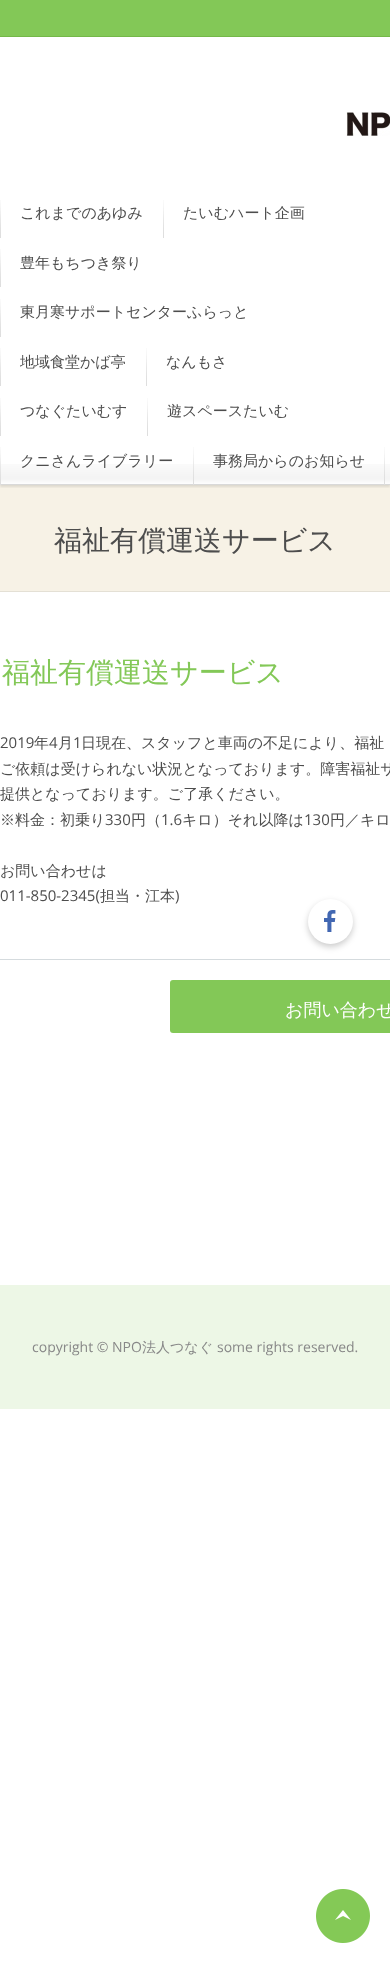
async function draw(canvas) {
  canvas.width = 390
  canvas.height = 1963
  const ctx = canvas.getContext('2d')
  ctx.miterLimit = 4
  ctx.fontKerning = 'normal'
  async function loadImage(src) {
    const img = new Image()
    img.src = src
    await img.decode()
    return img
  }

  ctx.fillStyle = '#fff'
  ctx.fillRect(0, 0, 390, 1963)
  ctx.fillStyle = '#83c857'
  ctx.fillRect(0, 0, 390, 36)
  ctx.fillStyle = '#74b849'
  ctx.fillRect(0, 36, 390, 1)
  ctx.drawImage(await loadImage('image0.png'), 346, 112, 44, 24)
  ctx.fillStyle = '#f7f2e6'
  ctx.fillRect(0, 485, 390, 106)
  ctx.save()
  ctx.beginPath()
  ctx.rect(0, 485, 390, 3)
  ctx.clip()
  ctx.fillStyle = '#0000001a'
  ctx.filter = 'blur(1px)'
  ctx.beginPath()
  ctx.rect(0, 190, 390, 297)
  ctx.fill()
  ctx.filter = 'none'
  ctx.restore()
  ctx.drawImage(await loadImage('image1.png'), 1, 464, 389, 21)
  ctx.drawImage(await loadImage('image2.png'), 0, 200, 1, 38)
  ctx.font = '500 15px WenQuanYi Zen Hei'
  ctx.fillStyle = '#4d4d4d'
  ctx.fillText('これまでのあゆみ', 20, 218)
  ctx.drawImage(await loadImage('image2.png'), 163, 200, 1, 38)
  ctx.fillText('たいむハート企画', 183, 218)
  ctx.drawImage(await loadImage('image2.png'), 0, 249, 1, 38)
  ctx.fillText('豊年もちつき祭り', 20, 268)
  ctx.drawImage(await loadImage('image2.png'), 0, 299, 1, 38)
  ctx.fillText('東月寒サポートセンターふらっと', 20, 317)
  ctx.drawImage(await loadImage('image2.png'), 0, 348, 1, 38)
  ctx.fillText('地域食堂かば亭', 20, 367)
  ctx.drawImage(await loadImage('image2.png'), 146, 348, 1, 38)
  ctx.fillText('なんもさ', 166, 367)
  ctx.drawImage(await loadImage('image2.png'), 0, 398, 1, 38)
  ctx.fillText('つなぐたいむす', 20, 416)
  ctx.drawImage(await loadImage('image2.png'), 147, 398, 1, 38)
  ctx.fillText('遊スペースたいむ', 167, 416)
  ctx.drawImage(await loadImage('image2.png'), 0, 447, 1, 38)
  ctx.fillText('クニさんライブラリー', 20, 466)
  ctx.drawImage(await loadImage('image2.png'), 384, 447, 1, 38)
  ctx.drawImage(await loadImage('image2.png'), 193, 447, 1, 38)
  ctx.fillText('事務局からのお知らせ', 213, 466)
  ctx.fillStyle = '#e4e0d5'
  ctx.fillRect(0, 591, 390, 1)
  ctx.font = '500 28px WenQuanYi Zen Hei'
  ctx.fillStyle = '#4d4d4d'
  ctx.fillText('福祉有償運送サービス', 54, 550)
  ctx.fillStyle = '#d5dbde'
  ctx.fillRect(0, 959, 390, 1)
  ctx.fillStyle = '#83c857'
  ctx.fillText('福祉有償運送サービス', 2, 682)
  ctx.font = '15px Open Sans'
  ctx.fillStyle = '#4d4d4d'
  ctx.fillText('2019', 0, 748)
  ctx.font = '500 15px WenQuanYi Zen Hei'
  ctx.fillText('年', 34, 748)
  ctx.font = '15px Open Sans'
  ctx.fillText('4', 49, 748)
  ctx.font = '500 15px WenQuanYi Zen Hei'
  ctx.fillText('月', 58, 748)
  ctx.font = '15px Open Sans'
  ctx.fillText('1', 73, 748)
  ctx.font = '500 15px WenQuanYi Zen Hei'
  ctx.fillText('日現在、スタッフと車両の不足により、福祉', 81, 748)
  ctx.fillText('ご依頼は受けられない状況となっております。障害福祉サ', 0, 774)
  ctx.fillText('提供となっております。ご了承ください。', 0, 799)
  ctx.fillText('※料金：初乗り', 0, 825)
  ctx.font = '15px Open Sans'
  ctx.fillText('330', 105, 825)
  ctx.font = '500 15px WenQuanYi Zen Hei'
  ctx.fillText('円（', 131, 825)
  ctx.font = '15px Open Sans'
  ctx.fillText('1.6', 161, 825)
  ctx.font = '500 15px WenQuanYi Zen Hei'
  ctx.fillText('キロ）それ以降は', 182, 825)
  ctx.font = '15px Open Sans'
  ctx.fillText('130', 304, 825)
  ctx.font = '500 15px WenQuanYi Zen Hei'
  ctx.fillText('円／キロ', 330, 825)
  ctx.fillText('お問い合わせは', 0, 876)
  ctx.font = '15px Open Sans'
  ctx.fillText('011-850-2345(', 0, 901)
  ctx.font = '500 15px WenQuanYi Zen Hei'
  ctx.fillText('担当・江本', 100, 901)
  ctx.font = '15px Open Sans'
  ctx.fillText(')', 175, 901)
  ctx.fillStyle = '#83c857'
  ctx.beginPath()
  ctx.roundRect(170, 980, 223, 53, 3)
  ctx.fill()
  ctx.font = '500 18px WenQuanYi Zen Hei'
  ctx.fillStyle = '#fff'
  ctx.fillText('お問い合わせ', 285, 1016)
  ctx.fillStyle = '#edf7e6'
  ctx.fillRect(0, 1285, 390, 124)
  ctx.font = '14px Open Sans'
  ctx.fillStyle = '#888'
  ctx.fillText('copyright © NPO', 32, 1352)
  ctx.font = '500 14px WenQuanYi Zen Hei'
  ctx.fillText('法人つなぐ', 142, 1352)
  ctx.font = '14px Open Sans'
  ctx.fillText('some rights reserved.', 217, 1352)
  ctx.drawImage(await loadImage('image3.png'), 316, 1889, 54, 54)
  ctx.fillStyle = '#00000033'
  ctx.filter = 'blur(3px)'
  ctx.beginPath()
  ctx.roundRect(308, 902, 45, 45, 22.5)
  ctx.fill()
  ctx.filter = 'none'
  ctx.fillStyle = '#fff'
  ctx.beginPath()
  ctx.arc(330.5, 921.5, 22.5, 0, 2 * Math.PI)
  ctx.fill()
  ctx.drawImage(await loadImage('image4.png'), 324, 910, 12, 22)
}

draw(document.querySelector('canvas'))
